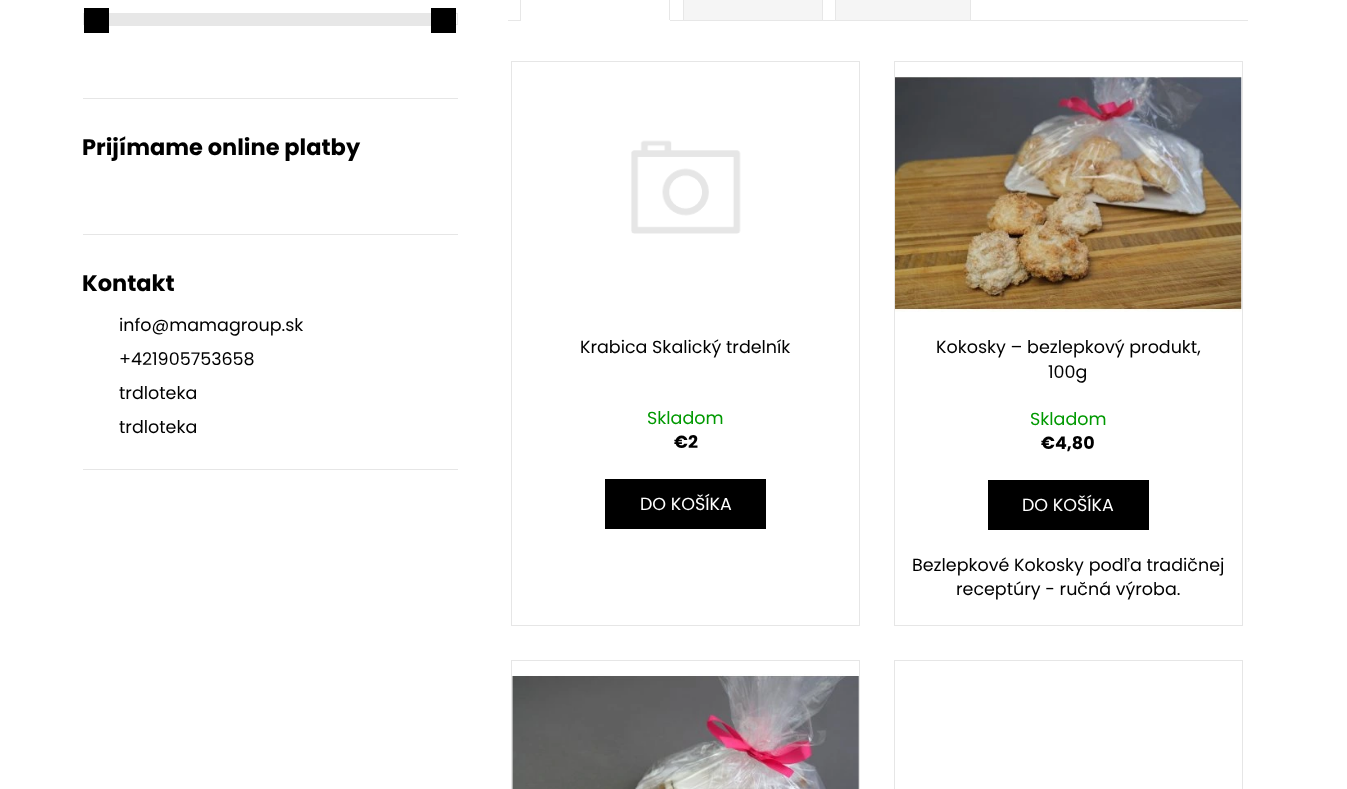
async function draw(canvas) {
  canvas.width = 1347
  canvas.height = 789
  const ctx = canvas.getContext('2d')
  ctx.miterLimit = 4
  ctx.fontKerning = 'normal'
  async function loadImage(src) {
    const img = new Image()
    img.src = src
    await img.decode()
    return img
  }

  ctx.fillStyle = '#fff'
  ctx.fillRect(0, 0, 1347, 789)
  ctx.strokeStyle = '#e7e7e7'
  ctx.strokeRect(83.5, 13.5, 374, 11)
  ctx.fillStyle = '#000'
  ctx.fillRect(84, 8, 25, 25)
  ctx.fillStyle = '#e7e7e7'
  ctx.fillRect(109, 14, 322, 12)
  ctx.fillStyle = '#000'
  ctx.fillRect(431, 8, 25, 25)
  ctx.fillStyle = '#e6e6e6'
  ctx.fillRect(83, 98, 375, 1)
  ctx.font = 'bold 22.5px Poppins'
  ctx.fillStyle = '#000'
  ctx.fillText('Prijímame online platby', 82, 155)
  ctx.fillStyle = '#e6e6e6'
  ctx.fillRect(83, 234, 375, 1)
  ctx.fillStyle = '#000'
  ctx.fillText('Kontakt', 82, 291)
  ctx.font = '17.5px Poppins'
  ctx.fillText('info@mamagroup.sk', 119, 331)
  ctx.fillText('+421905753658', 119, 365)
  ctx.fillText('trdloteka', 119, 399)
  ctx.fillText('trdloteka', 119, 433)
  ctx.fillStyle = '#e6e6e6'
  ctx.fillRect(83, 469, 375, 1)
  ctx.fillStyle = '#e7e7e7'
  ctx.fillRect(508, 20, 740, 1)
  ctx.fillRect(669, 0, 1, 21)
  ctx.fillStyle = '#fff'
  ctx.fillRect(520, 20, 150, 1)
  ctx.fillStyle = '#e7e7e7'
  ctx.fillRect(520, 0, 1, 21)
  ctx.fillStyle = '#f5f5f5'
  ctx.beginPath()
  ctx.rect(683.5, -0.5, 139, 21)
  ctx.fill()
  ctx.stroke()
  ctx.beginPath()
  ctx.rect(835.5, -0.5, 135, 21)
  ctx.fill()
  ctx.stroke()
  ctx.strokeStyle = '#e6e6e6'
  ctx.strokeRect(511.5, 61.5, 348, 564)
  ctx.drawImage(await loadImage('image0.png'), 631, 140, 110, 94)
  ctx.fillStyle = '#000'
  ctx.fillText('Krabica Skalický trdelník', 580, 353)
  ctx.fillStyle = '#009901'
  ctx.fillText('Skladom', 647, 424)
  ctx.font = 'bold 17.5px Poppins'
  ctx.fillStyle = '#000'
  ctx.fillText('€2', 674, 448)
  ctx.fillRect(605, 479, 161, 50)
  ctx.font = '17.5px Poppins'
  ctx.fillStyle = '#fff'
  ctx.fillText('DO KOŠÍKA', 640, 510)
  ctx.strokeRect(894.5, 61.5, 348, 564)
  ctx.drawImage(await loadImage('image1.png'), 895, 76, 347, 236)
  ctx.fillStyle = '#000'
  ctx.fillText('Kokosky – bezlepkový produkt,', 936, 353)
  ctx.fillText('100g', 1048, 378)
  ctx.fillStyle = '#009901'
  ctx.fillText('Skladom', 1030, 425)
  ctx.font = 'bold 17.5px Poppins'
  ctx.fillStyle = '#000'
  ctx.fillText('€4,80', 1041, 449)
  ctx.fillRect(988, 480, 161, 50)
  ctx.font = '17.5px Poppins'
  ctx.fillStyle = '#fff'
  ctx.fillText('DO KOŠÍKA', 1022, 511)
  ctx.fillStyle = '#000'
  ctx.fillText('Bezlepkové Kokosky podľa tradičnej', 912, 571)
  ctx.fillText('receptúry - ručná výroba.', 956, 595)
  ctx.strokeRect(511.5, 660.5, 348, 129)
  ctx.drawImage(await loadImage('image2.png'), 512, 674, 347, 115)
  ctx.strokeRect(894.5, 660.5, 348, 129)
}

draw(document.querySelector('canvas'))
